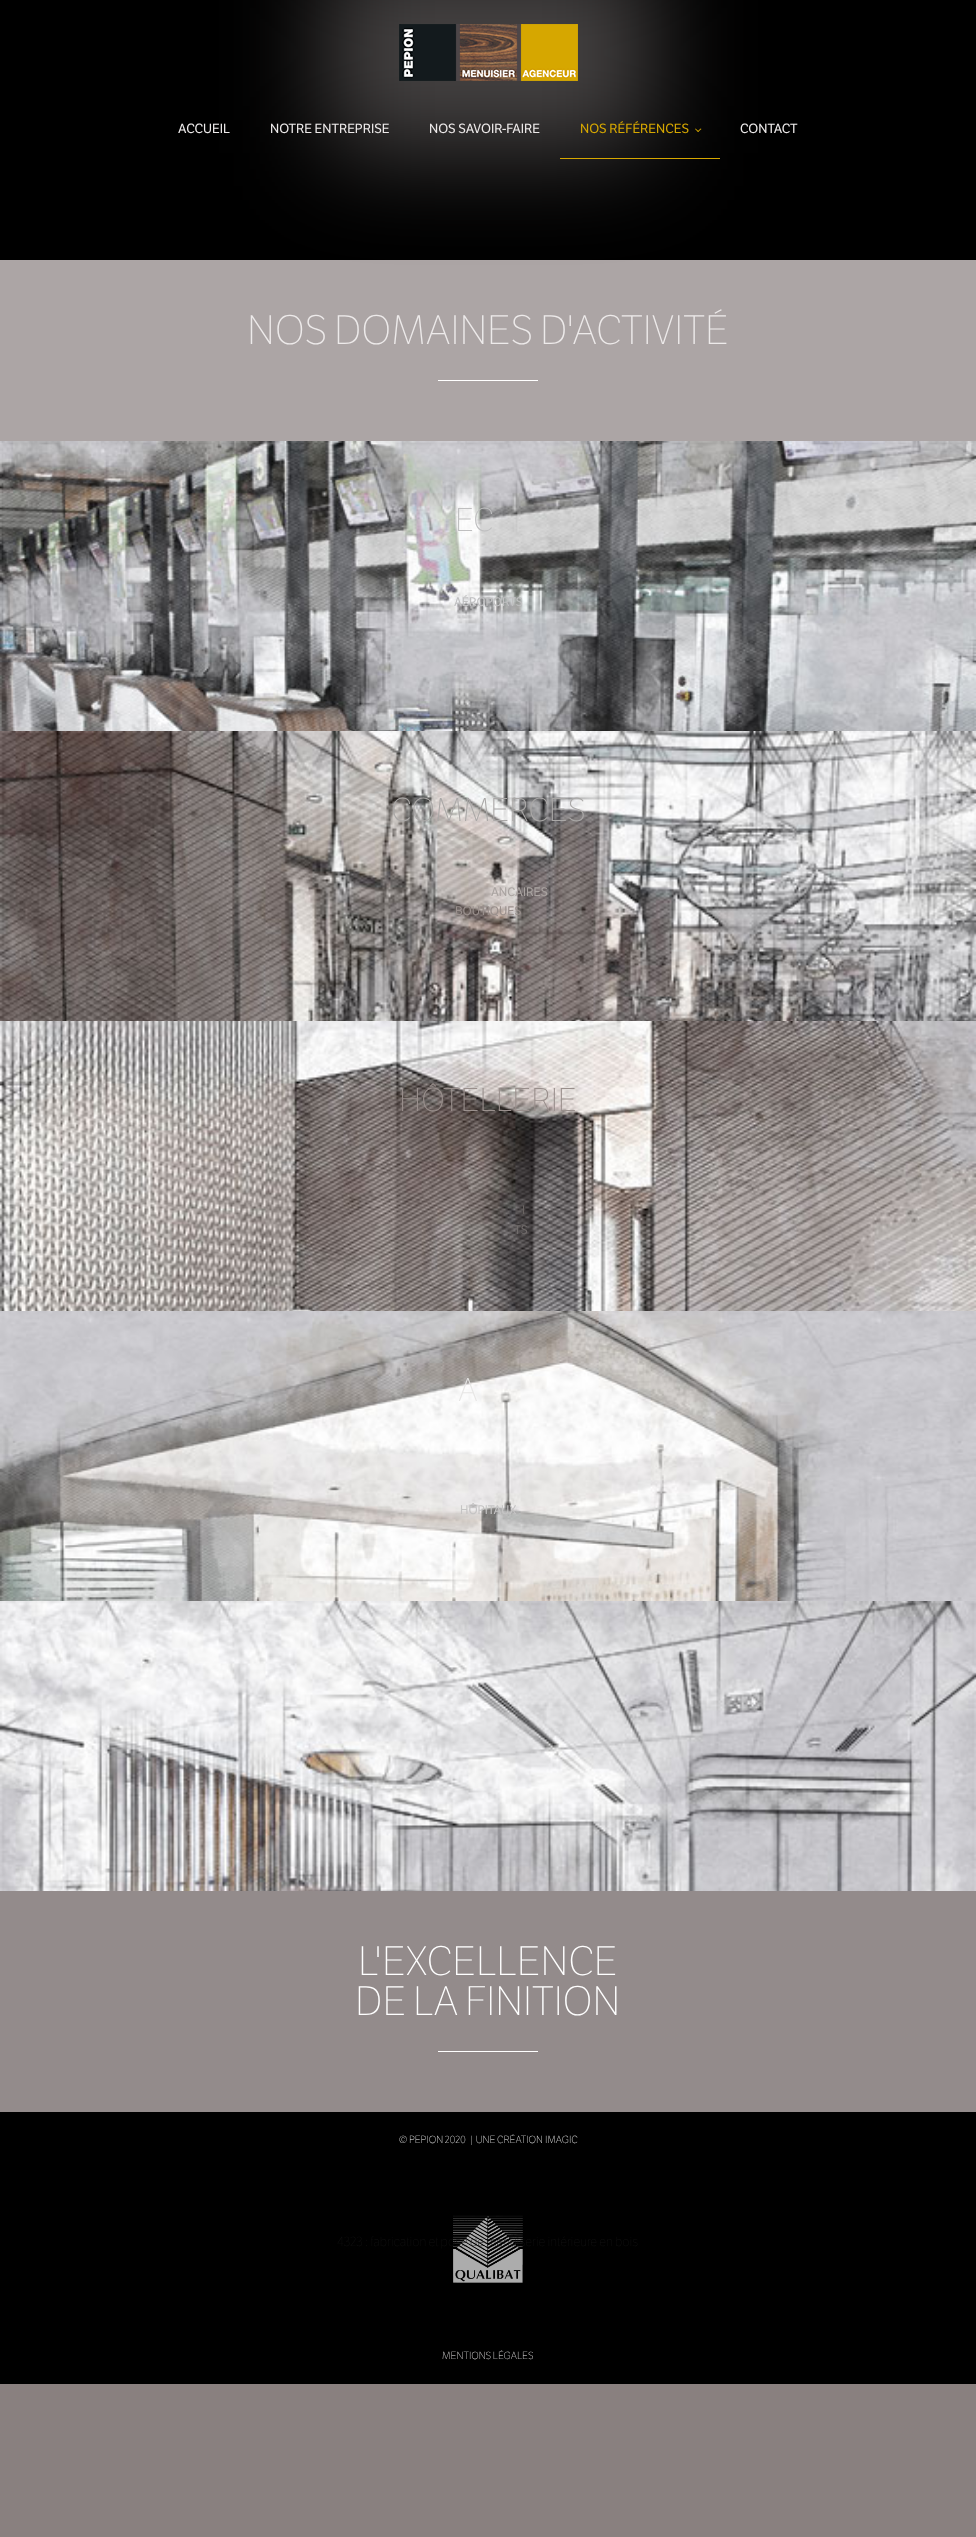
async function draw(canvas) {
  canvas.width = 976
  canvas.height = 2537
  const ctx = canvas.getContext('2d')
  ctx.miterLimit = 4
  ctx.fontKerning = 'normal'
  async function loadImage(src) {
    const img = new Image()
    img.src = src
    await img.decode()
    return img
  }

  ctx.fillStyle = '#89807f'
  ctx.fillRect(0, 0, 976, 2537)
  ctx.fillStyle = '#000'
  ctx.fillRect(0, 0, 976, 260)
  ctx.fillStyle = '#aca5a5'
  ctx.fillRect(0, 260, 976, 181)
  ctx.fillStyle = '#aca5a566'
  ctx.filter = 'blur(50px)'
  ctx.beginPath()
  ctx.rect(327, -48, 323, 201)
  ctx.fill()
  ctx.filter = 'none'
  ctx.fillStyle = '#4d4648'
  ctx.fillRect(399, 24, 179, 57)
  ctx.drawImage(await loadImage('image0.png'), 399, 24, 179, 57)
  ctx.font = '13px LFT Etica'
  ctx.fillStyle = '#edeaea'
  ctx.fillText('ACCUEIL', 178, 133)
  ctx.fillText('NOTRE ENTREPRISE', 270, 133)
  ctx.fillText('NOS SAVOIR-FAIRE', 429, 133)
  ctx.fillStyle = '#d6a700'
  ctx.fillRect(560, 158, 160, 1)
  ctx.fillText('NOS RÉFÉRENCES', 580, 133)
  ctx.beginPath()
  ctx.moveTo(701.5, 129)
  ctx.lineTo(698, 132)
  ctx.lineTo(697.5, 131.5)
  ctx.lineTo(700.5, 128.5)
  ctx.closePath()
  ctx.fill()
  ctx.beginPath()
  ctx.moveTo(699, 131.5)
  ctx.lineTo(698, 132)
  ctx.lineTo(695, 129)
  ctx.lineTo(695.5, 128.5)
  ctx.closePath()
  ctx.fill()
  ctx.fillStyle = '#edeaea'
  ctx.fillText('CONTACT', 740, 133)
  ctx.font = '300 40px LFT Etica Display'
  ctx.fillText('NOS DOMAINES D\'ACTIVITÉ', 247, 344)
  ctx.fillStyle = '#fff'
  ctx.fillRect(438, 380, 100, 1)
  ctx.drawImage(await loadImage('image1.png'), 0, 441, 976, 290)
  ctx.font = '300 32px LFT Etica Display'
  ctx.fillStyle = '#bfbfc0'
  ctx.fillText('EC', 455, 531)
  ctx.font = '12px LFT Etica'
  ctx.fillText('AÉROPORTS', 454, 606)
  ctx.drawImage(await loadImage('image2.png'), 0, 731, 976, 290)
  ctx.font = '300 32px LFT Etica Display'
  ctx.fillStyle = '#aaa8a7'
  ctx.fillText('COMMERCES', 391, 821)
  ctx.font = '12px LFT Etica'
  ctx.fillStyle = '#a9a3a0'
  ctx.fillText('ANCAIRES', 491, 896)
  ctx.fillStyle = '#998f8c'
  ctx.fillText('BOUTIQUES', 455, 915)
  ctx.drawImage(await loadImage('image3.png'), 0, 1021, 976, 290)
  ctx.font = '300 32px LFT Etica Display'
  ctx.fillText('HÔTELLERIE', 399, 1111)
  ctx.font = '12px LFT Etica'
  ctx.fillStyle = '#6a6462'
  ctx.fillText('I', 522, 1214)
  ctx.fillStyle = '#716c6b'
  ctx.fillText('TS', 514, 1234)
  ctx.drawImage(await loadImage('image4.png'), 0, 1311, 976, 290)
  ctx.font = '300 32px LFT Etica Display'
  ctx.fillStyle = '#e7e6e5'
  ctx.fillText('A', 458, 1401)
  ctx.font = '12px LFT Etica'
  ctx.fillStyle = '#c5c4c4'
  ctx.fillText('HÔPITAUX', 460, 1514)
  ctx.drawImage(await loadImage('image5.png'), 0, 1601, 976, 290)
  ctx.fillStyle = '#938b8b'
  ctx.fillRect(0, 1891, 976, 221)
  ctx.font = '300 40px LFT Etica Display'
  ctx.fillStyle = '#fff'
  ctx.fillText('L\'EXCELLENCE', 358, 1975)
  ctx.fillText('DE LA FINITION', 355, 2015)
  ctx.fillRect(438, 2051, 100, 1)
  ctx.fillStyle = '#000'
  ctx.fillRect(0, 2112, 976, 272)
  ctx.font = '300 10px LFT Etica Display'
  ctx.fillStyle = '#f4f4f4'
  ctx.fillText('© PEPION 2020', 399, 2143)
  ctx.fillText('| UNE CRÉATION', 469, 2143)
  ctx.fillStyle = '#fff'
  ctx.fillText('IMAGIC', 545, 2143)
  ctx.drawImage(await loadImage('image6.png'), 453, 2215, 70, 68)
  ctx.font = '300 13px LFT Etica Display'
  ctx.fillStyle = '#121212'
  ctx.fillText('4323 : fabrication et pose de menuiserie intérieure en bois', 337, 2246)
  ctx.font = '300 10px LFT Etica Display'
  ctx.fillStyle = '#edeaea'
  ctx.fillText('MENTIONS LÉGALES', 442, 2359)
}

draw(document.querySelector('canvas'))
